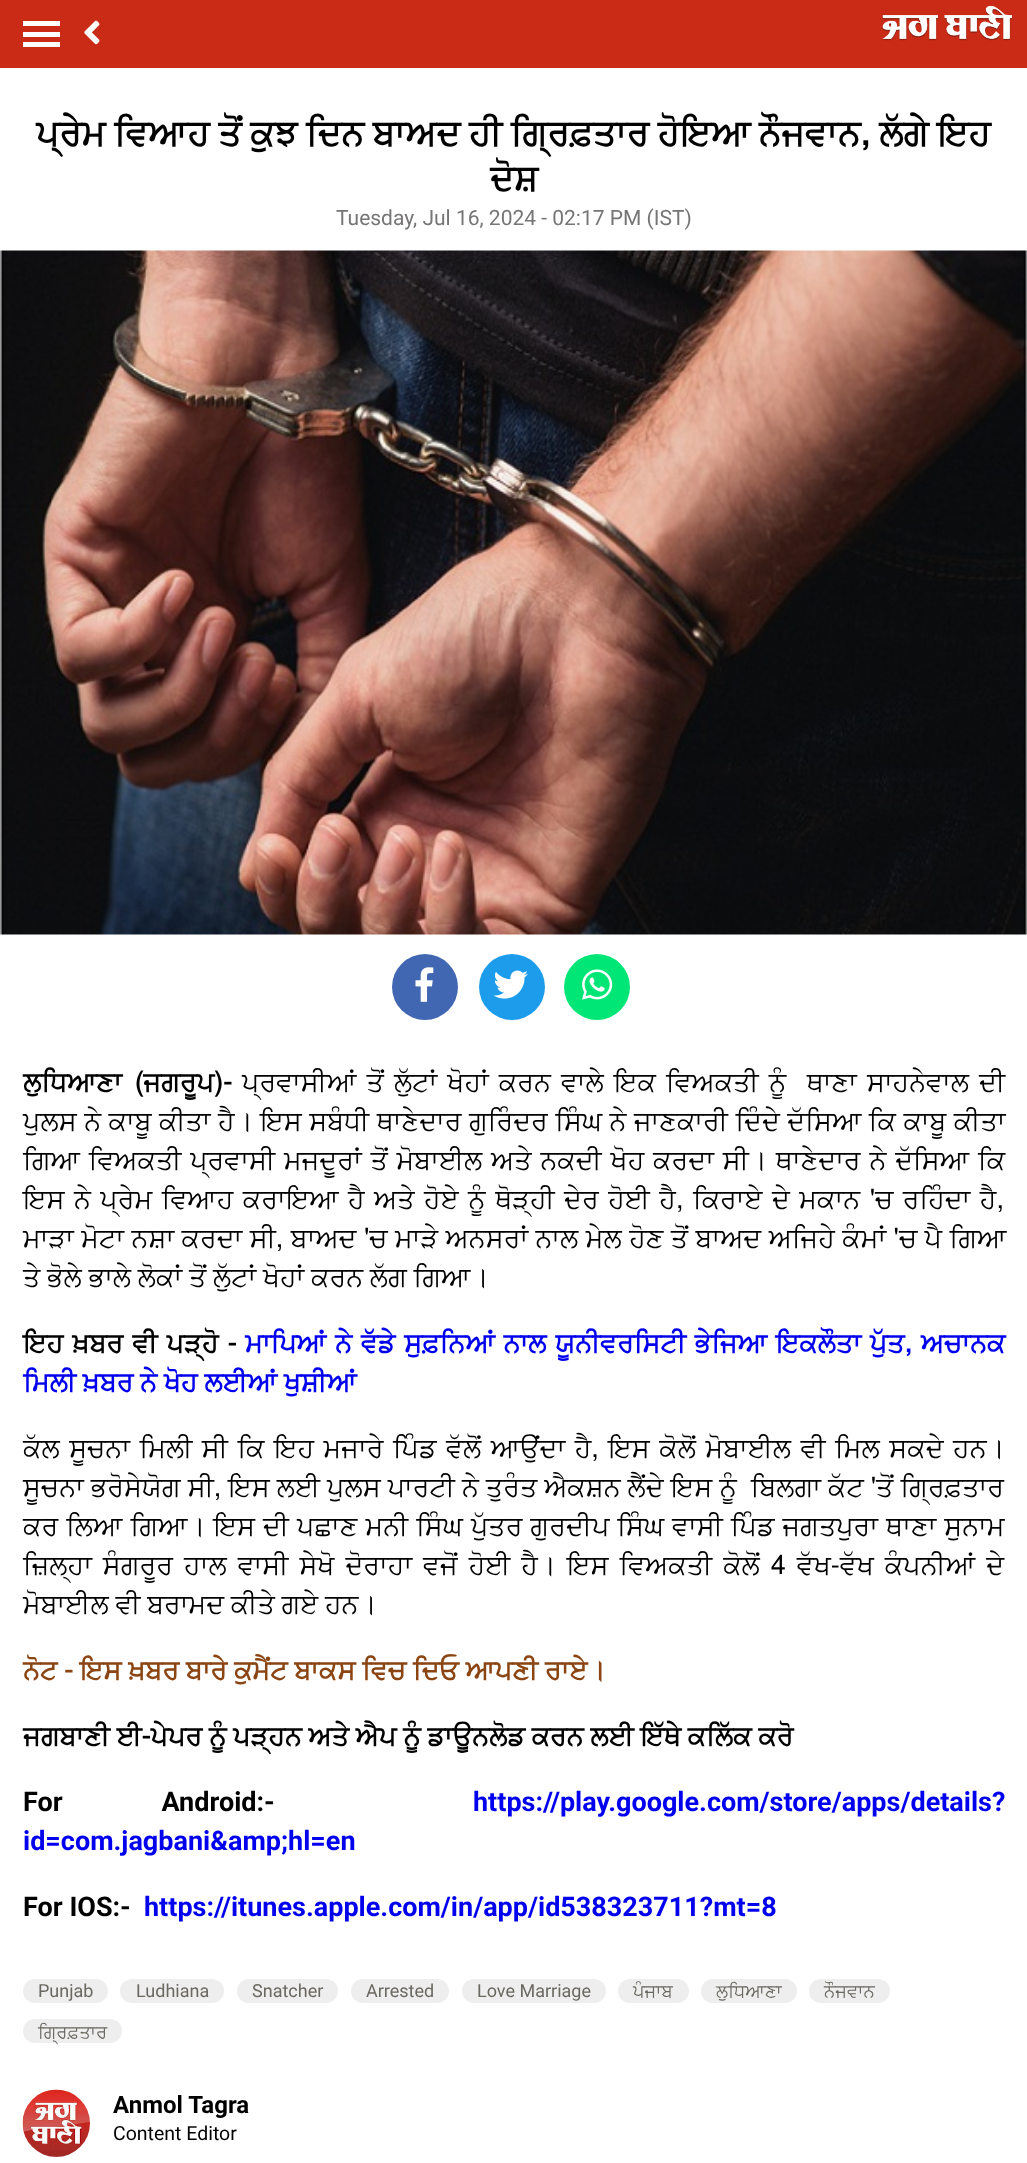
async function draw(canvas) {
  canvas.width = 1027
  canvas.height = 2163
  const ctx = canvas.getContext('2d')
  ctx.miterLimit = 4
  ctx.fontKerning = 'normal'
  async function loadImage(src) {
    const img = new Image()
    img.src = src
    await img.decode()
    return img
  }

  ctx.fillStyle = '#c92b17'
  ctx.fillRect(0, 0, 1027, 2163)
  ctx.fillStyle = '#fff'
  ctx.fillRect(23, 21, 37, 5)
  ctx.fillRect(23, 32, 37, 5)
  ctx.fillRect(23, 42, 37, 5)
  ctx.drawImage(await loadImage('image0.png'), 84, 20, 16, 25)
  ctx.drawImage(await loadImage('image1.png'), 882, 6, 131, 35)
  ctx.fillRect(0, 68, 1027, 2095)
  ctx.wordSpacing = '-0.25px'
  ctx.font = 'bold 36px FreeSans'
  ctx.fillStyle = '#000'
  ctx.fillText('ਪ੍ਰੇਮ ਵਿਆਹ ਤੋਂ ਕੁਝ ਦਿਨ ਬਾਅਦ ਹੀ ਗ੍ਰਿਫ਼ਤਾਰ ਹੋਇਆ ਨੌਜਵਾਨ, ਲੱਗੇ ਇਹ', 36, 145)
  ctx.wordSpacing = '0px'
  ctx.fillText('ਦੋਸ਼', 490, 190)
  ctx.font = '21px Roboto'
  ctx.fillStyle = '#777575'
  ctx.fillText('Tuesday, Jul 16, 2024 - 02:17 PM (IST)', 336, 225)
  ctx.drawImage(await loadImage('image2.png'), 0, 250, 1027, 685)
  ctx.fillStyle = '#4267b2'
  ctx.beginPath()
  ctx.arc(425, 987, 33, 0, 2 * Math.PI)
  ctx.fill()
  ctx.drawImage(await loadImage('image3.png'), 415, 967, 19, 35)
  ctx.fillStyle = '#1c9cea'
  ctx.beginPath()
  ctx.arc(512, 987, 33, 0, 2 * Math.PI)
  ctx.fill()
  ctx.drawImage(await loadImage('image4.png'), 493, 970, 35, 29)
  ctx.fillStyle = '#00e676'
  ctx.beginPath()
  ctx.arc(597, 987, 33, 0, 2 * Math.PI)
  ctx.fill()
  ctx.drawImage(await loadImage('image5.png'), 582, 969, 31, 31)
  ctx.wordSpacing = '6px'
  ctx.font = 'bold 27px FreeSans'
  ctx.fillStyle = '#000'
  ctx.fillText('ਲੁਧਿਆਣਾ (ਜਗਰੂਪ)-', 23, 1091)
  ctx.wordSpacing = '3.4px'
  ctx.font = '27px FreeSans'
  ctx.fillText('ਪ੍ਰਵਾਸੀਆਂ ਤੋਂ ਲੁੱਟਾਂ ਖੋਹਾਂ ਕਰਨ ਵਾਲੇ ਇਕ ਵਿਅਕਤੀ ਨੂੰ  ਥਾਣਾ ਸਾਹਨੇਵਾਲ ਦੀ', 242, 1091)
  ctx.wordSpacing = '0.75px'
  ctx.fillText('ਪੁਲਸ ਨੇ ਕਾਬੂ ਕੀਤਾ ਹੈ। ਇਸ ਸਬੰਧੀ ਥਾਣੇਦਾਰ ਗੁਰਿੰਦਰ ਸਿੰਘ ਨੇ ਜਾਣਕਾਰੀ ਦਿੰਦੇ ਦੱਸਿਆ ਕਿ ਕਾਬੂ ਕੀਤਾ', 23, 1130)
  ctx.wordSpacing = '2.1px'
  ctx.fillText('ਗਿਆ ਵਿਅਕਤੀ ਪ੍ਰਵਾਸੀ ਮਜਦੂਰਾਂ ਤੋਂ ਮੋਬਾਈਲ ਅਤੇ ਨਕਦੀ ਖੋਹ ਕਰਦਾ ਸੀ। ਥਾਣੇਦਾਰ ਨੇ ਦੱਸਿਆ ਕਿ', 23, 1169)
  ctx.wordSpacing = '2.75px'
  ctx.fillText('ਇਸ ਨੇ ਪ੍ਰੇਮ ਵਿਆਹ ਕਰਾਇਆ ਹੈ ਅਤੇ ਹੋਏ ਨੂੰ ਥੋੜ੍ਹੀ ਦੇਰ ਹੋਈ ਹੈ, ਕਿਰਾਏ ਦੇ ਮਕਾਨ \'ਚ ਰਹਿੰਦਾ ਹੈ,', 23, 1208)
  ctx.wordSpacing = '0.7px'
  ctx.fillText('ਮਾੜਾ ਮੋਟਾ ਨਸ਼ਾ ਕਰਦਾ ਸੀ, ਬਾਅਦ \'ਚ ਮਾੜੇ ਅਨਸਰਾਂ ਨਾਲ ਮੇਲ ਹੋਣ ਤੋਂ ਬਾਅਦ ਅਜਿਹੇ ਕੰਮਾਂ \'ਚ ਪੈ ਗਿਆ', 23, 1247)
  ctx.wordSpacing = '0px'
  ctx.fillText('ਤੇ ਭੋਲੇ ਭਾਲੇ ਲੋਕਾਂ ਤੋਂ ਲੁੱਟਾਂ ਖੋਹਾਂ ਕਰਨ ਲੱਗ ਗਿਆ।', 23, 1286)
  ctx.wordSpacing = '2.5px'
  ctx.font = 'bold 27px FreeSans'
  ctx.fillText('ਇਹ ਖ਼ਬਰ ਵੀ ਪੜ੍ਹੋ -', 23, 1352)
  ctx.wordSpacing = '2.1px'
  ctx.fillStyle = '#00e'
  ctx.fillText('ਮਾਪਿਆਂ ਨੇ ਵੱਡੇ ਸੁਫ਼ਨਿਆਂ ਨਾਲ ਯੂਨੀਵਰਸਿਟੀ ਭੇਜਿਆ ਇਕਲੌਤਾ ਪੁੱਤ, ਅਚਾਨਕ', 245, 1352)
  ctx.wordSpacing = '0px'
  ctx.fillText('ਮਿਲੀ ਖ਼ਬਰ ਨੇ ਖੋਹ ਲਈਆਂ ਖੁਸ਼ੀਆਂ', 23, 1391)
  ctx.wordSpacing = '2.75px'
  ctx.font = '27px FreeSans'
  ctx.fillStyle = '#000'
  ctx.fillText('ਕੱਲ ਸੂਚਨਾ ਮਿਲੀ ਸੀ ਕਿ ਇਹ ਮਜਾਰੇ ਪਿੰਡ ਵੱਲੋਂ ਆਉਂਦਾ ਹੈ, ਇਸ ਕੋਲੋਂ ਮੋਬਾਈਲ ਵੀ ਮਿਲ ਸਕਦੇ ਹਨ।', 23, 1457)
  ctx.wordSpacing = '0.25px'
  ctx.fillText('ਸੂਚਨਾ ਭਰੋਸੇਯੋਗ ਸੀ, ਇਸ ਲਈ ਪੁਲਸ ਪਾਰਟੀ ਨੇ ਤੁਰੰਤ ਐਕਸ਼ਨ ਲੈਂਦੇ ਇਸ ਨੂੰ  ਬਿਲਗਾ ਕੱਟ \'ਤੋਂ ਗ੍ਰਿਫ਼ਤਾਰ', 23, 1496)
  ctx.wordSpacing = '1.25px'
  ctx.fillText('ਕਰ ਲਿਆ ਗਿਆ। ਇਸ ਦੀ ਪਛਾਣ ਮਨੀ ਸਿੰਘ ਪੁੱਤਰ ਗੁਰਦੀਪ ਸਿੰਘ ਵਾਸੀ ਪਿੰਡ ਜਗਤਪੁਰਾ ਥਾਣਾ ਸੁਨਾਮ', 23, 1535)
  ctx.wordSpacing = '4.25px'
  ctx.fillText('ਜ਼ਿਲ੍ਹਾ ਸੰਗਰੂਰ ਹਾਲ ਵਾਸੀ ਸੇਖੋ ਦੋਰਾਹਾ ਵਜੋਂ ਹੋਈ ਹੈ। ਇਸ ਵਿਅਕਤੀ ਕੋਲੋਂ 4 ਵੱਖ-ਵੱਖ ਕੰਪਨੀਆਂ ਦੇ', 23, 1574)
  ctx.wordSpacing = '0px'
  ctx.fillText('ਮੋਬਾਈਲ ਵੀ ਬਰਾਮਦ ਕੀਤੇ ਗਏ ਹਨ।', 23, 1613)
  ctx.wordSpacing = '0.1px'
  ctx.font = 'bold 27px FreeSans'
  ctx.fillStyle = '#8b4513'
  ctx.fillText('ਨੋਟ - ਇਸ ਖ਼ਬਰ ਬਾਰੇ ਕੁਮੈਂਟ ਬਾਕਸ ਵਿਚ ਦਿਓ ਆਪਣੀ ਰਾਏ।', 23, 1679)
  ctx.wordSpacing = '0px'
  ctx.fillStyle = '#000'
  ctx.fillText('ਜਗਬਾਣੀ ਈ-ਪੇਪਰ ਨੂੰ ਪੜ੍ਹਨ ਅਤੇ ਐਪ ਨੂੰ ਡਾਊਨਲੋਡ ਕਰਨ ਲਈ ਇੱਥੇ ਕਲਿੱਕ ਕਰੋ', 23, 1745)
  ctx.wordSpacing = '92px'
  ctx.font = 'bold 27px Roboto'
  ctx.fillText('For Android:-', 23, 1811)
  ctx.wordSpacing = '0px'
  ctx.fillStyle = '#00e'
  ctx.fillText('https://play.google.com/store/apps/details?', 473, 1811)
  ctx.fillText('id=com.jagbani&amp;hl=en', 23, 1850)
  ctx.fillStyle = '#000'
  ctx.fillText('For IOS:-', 23, 1916)
  ctx.fillStyle = '#00e'
  ctx.fillText('https://itunes.apple.com/in/app/id538323711?mt=8', 144, 1916)
  ctx.fillStyle = '#eee'
  ctx.beginPath()
  ctx.roundRect(23, 1979, 85, 24, 12)
  ctx.fill()
  ctx.font = '18px Roboto'
  ctx.fillStyle = '#6b6861'
  ctx.fillText('Punjab', 38, 1997)
  ctx.fillStyle = '#eee'
  ctx.beginPath()
  ctx.roundRect(120, 1979, 104, 24, 12)
  ctx.fill()
  ctx.fillStyle = '#6b6861'
  ctx.fillText('Ludhiana', 136, 1997)
  ctx.fillStyle = '#eee'
  ctx.beginPath()
  ctx.roundRect(237, 1979, 101, 24, 12)
  ctx.fill()
  ctx.fillStyle = '#6b6861'
  ctx.fillText('Snatcher', 252, 1997)
  ctx.fillStyle = '#eee'
  ctx.beginPath()
  ctx.roundRect(351, 1979, 98, 24, 12)
  ctx.fill()
  ctx.fillStyle = '#6b6861'
  ctx.fillText('Arrested', 366, 1997)
  ctx.fillStyle = '#eee'
  ctx.beginPath()
  ctx.roundRect(462, 1979, 144, 24, 12)
  ctx.fill()
  ctx.fillStyle = '#6b6861'
  ctx.fillText('Love Marriage', 477, 1997)
  ctx.fillStyle = '#eee'
  ctx.beginPath()
  ctx.roundRect(618, 1979, 71, 24, 12)
  ctx.fill()
  ctx.font = '18px FreeSans'
  ctx.fillStyle = '#6b6861'
  ctx.fillText('ਪੰਜਾਬ', 633, 1997)
  ctx.fillStyle = '#eee'
  ctx.beginPath()
  ctx.roundRect(701, 1979, 96, 24, 12)
  ctx.fill()
  ctx.fillStyle = '#6b6861'
  ctx.fillText('ਲੁਧਿਆਣਾ', 716, 1997)
  ctx.fillStyle = '#eee'
  ctx.beginPath()
  ctx.roundRect(809, 1979, 81, 24, 12)
  ctx.fill()
  ctx.fillStyle = '#6b6861'
  ctx.fillText('ਨੌਜਵਾਨ', 824, 1997)
  ctx.fillStyle = '#eee'
  ctx.beginPath()
  ctx.roundRect(23, 2019, 99, 24, 12)
  ctx.fill()
  ctx.fillStyle = '#6b6861'
  ctx.fillText('ਗ੍ਰਿਫ਼ਤਾਰ', 38, 2038)
  ctx.drawImage(await loadImage('image6.png'), 22, 2089, 68, 68)
  ctx.font = 'bold 24px Roboto'
  ctx.fillStyle = '#000'
  ctx.fillText('Anmol Tagra', 113, 2113)
  ctx.font = '19.5px Roboto'
  ctx.fillText('Content Editor', 113, 2140)
}

draw(document.querySelector('canvas'))
